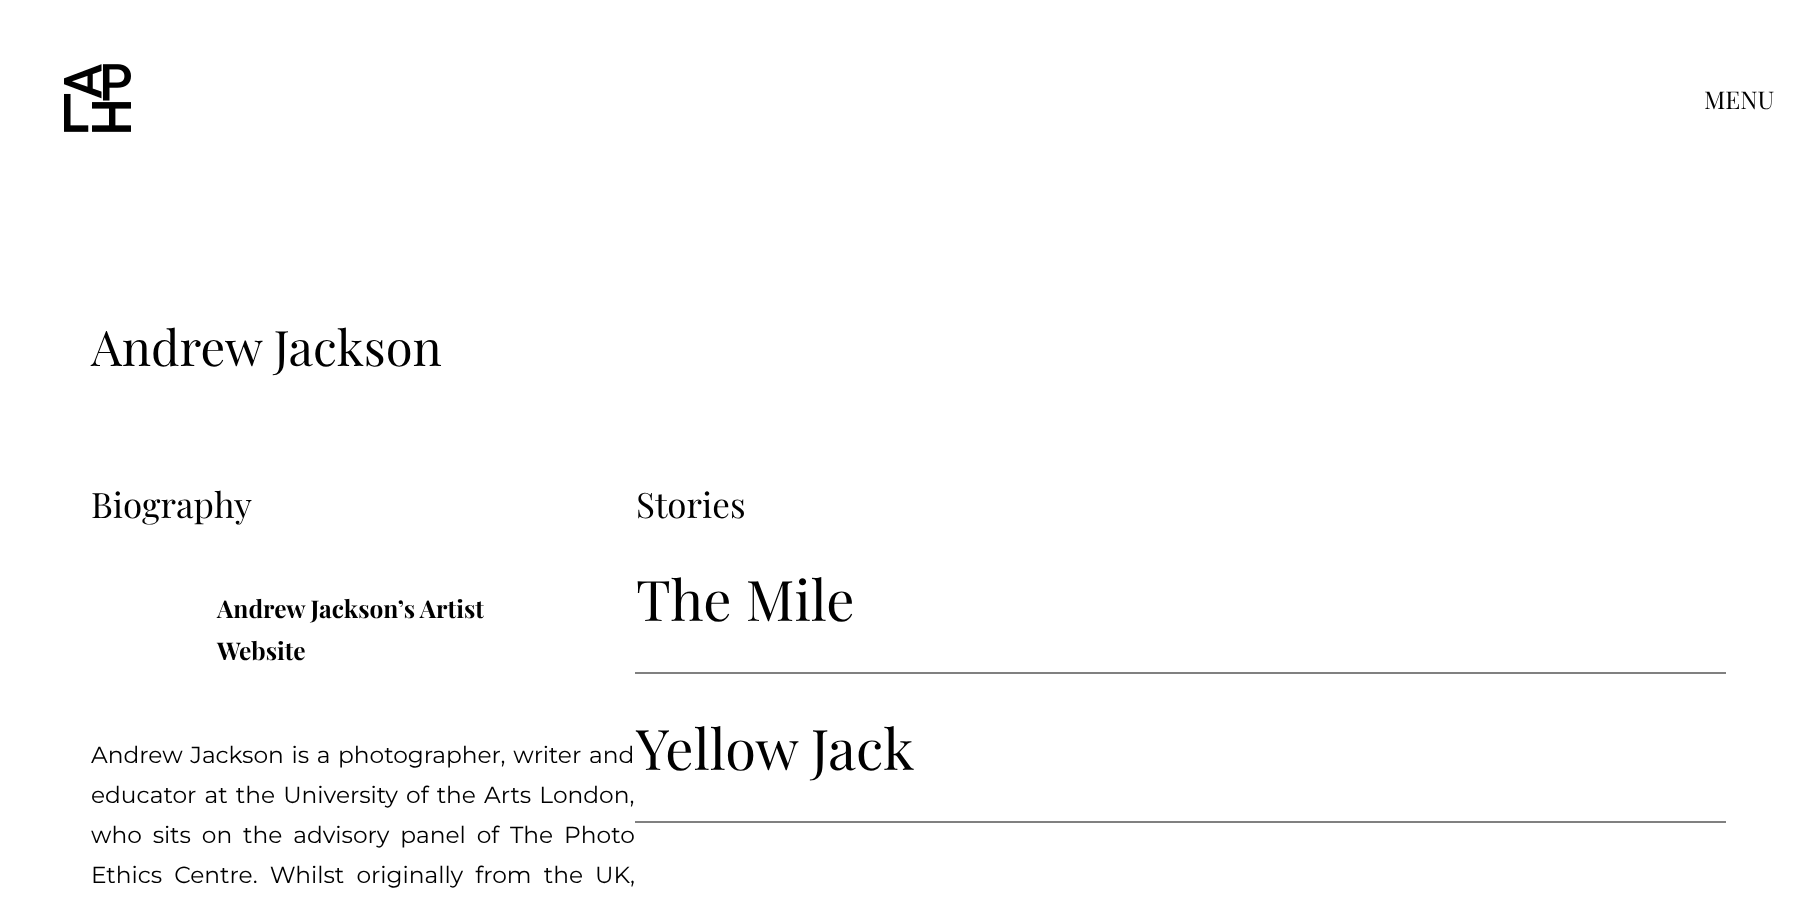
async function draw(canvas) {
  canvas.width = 1816
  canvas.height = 902
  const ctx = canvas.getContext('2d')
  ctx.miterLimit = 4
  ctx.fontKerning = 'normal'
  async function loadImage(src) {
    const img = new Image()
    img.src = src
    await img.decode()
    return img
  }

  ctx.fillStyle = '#fff'
  ctx.fillRect(0, 0, 1816, 902)
  ctx.drawImage(await loadImage('image0.png'), 64, 64, 67, 68)
  ctx.font = '24.5px Playfair Display'
  ctx.fillStyle = '#000'
  ctx.fillText('MENU', 1704, 109)
  ctx.font = '49px Playfair Display'
  ctx.fillText('Andrew Jackson', 91, 366)
  ctx.font = '35px Playfair Display'
  ctx.fillText('Biography', 91, 518)
  ctx.font = 'bold 24.5px Playfair Display'
  ctx.fillText('Andrew Jackson’s Artist', 217, 618)
  ctx.fillText('Website', 217, 660)
  ctx.wordSpacing = '1.5px'
  ctx.font = '23.3px Montserrat'
  ctx.fillText('Andrew Jackson is a photographer, writer and', 91, 763)
  ctx.wordSpacing = '2px'
  ctx.fillText('educator at the University of the Arts London,', 91, 803)
  ctx.wordSpacing = '4.75px'
  ctx.fillText('who sits on the advisory panel of The Photo', 91, 843)
  ctx.wordSpacing = '6px'
  ctx.fillText('Ethics Centre. Whilst originally from the UK,', 91, 883)
  ctx.wordSpacing = '0px'
  ctx.font = '35px Playfair Display'
  ctx.fillText('Stories', 636, 518)
  ctx.fillStyle = '#808080'
  ctx.fillRect(635, 672, 1091, 2)
  ctx.font = '56px Playfair Display'
  ctx.fillStyle = '#000'
  ctx.fillText('The Mile', 636, 621)
  ctx.fillStyle = '#808080'
  ctx.fillRect(635, 821, 1091, 2)
  ctx.fillStyle = '#000'
  ctx.fillText('Yellow Jack', 636, 770)
}

draw(document.querySelector('canvas'))
